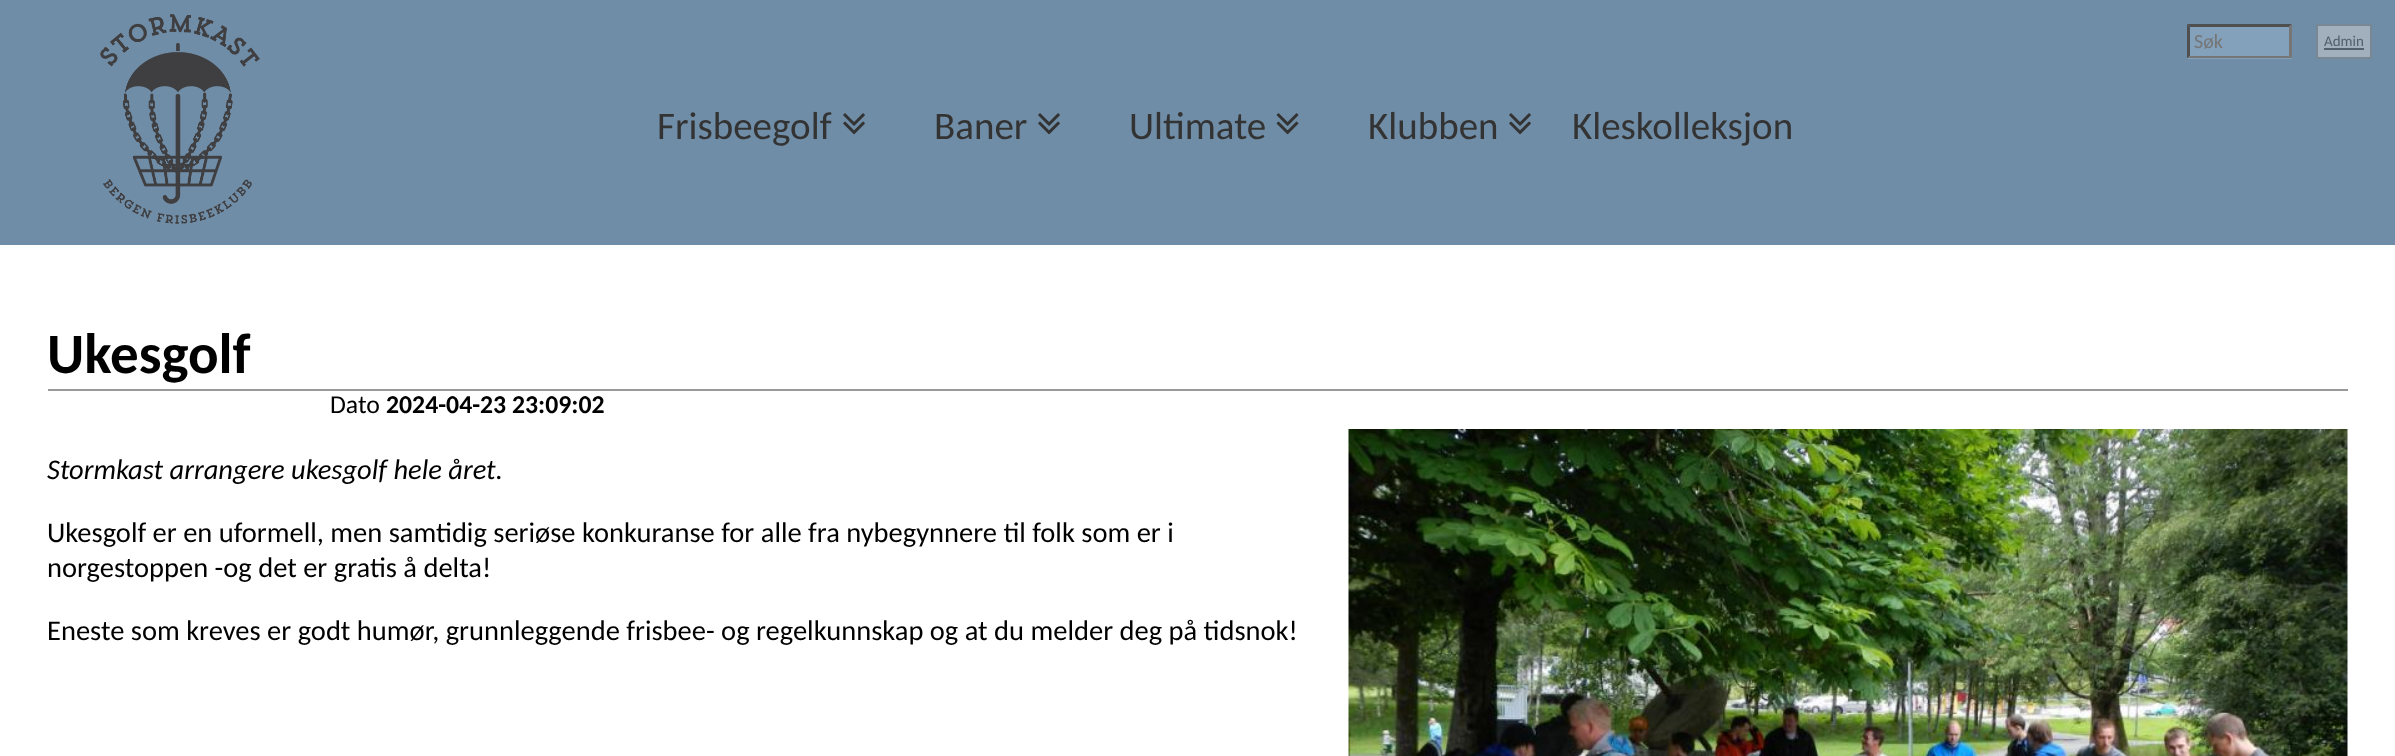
async function draw(canvas) {
  canvas.width = 2395
  canvas.height = 756
  const ctx = canvas.getContext('2d')
  ctx.miterLimit = 4
  ctx.fontKerning = 'normal'
  async function loadImage(src) {
    const img = new Image()
    img.src = src
    await img.decode()
    return img
  }

  ctx.fillStyle = '#fff'
  ctx.fillRect(0, 0, 2395, 756)
  ctx.fillStyle = '#708da7'
  ctx.fillRect(0, 0, 2395, 245)
  ctx.drawImage(await loadImage('image0.png'), 100, 14, 160, 210)
  ctx.fillStyle = '#84a1bb'
  ctx.fillRect(2187, 24, 105, 35)
  ctx.fillStyle = '#4f4f4f'
  ctx.beginPath()
  ctx.moveTo(2187, 24)
  ctx.lineTo(2292, 24)
  ctx.lineTo(2289, 27)
  ctx.lineTo(2190, 27)
  ctx.closePath()
  ctx.fill()
  ctx.fillStyle = '#767676'
  ctx.beginPath()
  ctx.moveTo(2292, 24)
  ctx.lineTo(2292, 58.5)
  ctx.lineTo(2289, 55.5)
  ctx.lineTo(2289, 27)
  ctx.closePath()
  ctx.fill()
  ctx.beginPath()
  ctx.moveTo(2292, 58)
  ctx.lineTo(2187, 58)
  ctx.lineTo(2190, 56)
  ctx.lineTo(2289, 56)
  ctx.closePath()
  ctx.fill()
  ctx.fillStyle = '#4f4f4f'
  ctx.beginPath()
  ctx.moveTo(2187, 58.5)
  ctx.lineTo(2187, 24)
  ctx.lineTo(2190, 27)
  ctx.lineTo(2190, 55.5)
  ctx.closePath()
  ctx.fill()
  ctx.font = '20px Carlito'
  ctx.fillStyle = '#757575'
  ctx.fillText('Søk', 2194, 48)
  ctx.fillStyle = '#a2b0bd'
  ctx.beginPath()
  ctx.rect(2317, 25, 54, 33)
  ctx.fill()
  ctx.strokeStyle = '#788794'
  ctx.lineWidth = 2
  ctx.stroke()
  ctx.font = '15px Carlito'
  ctx.fillStyle = '#52606d'
  ctx.fillText('Admin', 2324, 46)
  ctx.fillRect(2324, 48, 40, 2)
  ctx.font = '39px Carlito'
  ctx.fillStyle = '#333'
  ctx.fillText('Frisbeegolf', 657, 139)
  ctx.drawImage(await loadImage('image1.png'), 843, 113, 22, 22)
  ctx.fillText('Baner', 934, 139)
  ctx.drawImage(await loadImage('image1.png'), 1038, 113, 22, 22)
  ctx.fillText('Ultimate', 1129, 139)
  ctx.drawImage(await loadImage('image2.png'), 1276, 113, 23, 22)
  ctx.fillText('Klubben', 1368, 139)
  ctx.drawImage(await loadImage('image1.png'), 1509, 113, 22, 22)
  ctx.fillText('Kleskolleksjon', 1572, 139)
  ctx.fillStyle = '#999'
  ctx.fillRect(48, 389, 2300, 2)
  ctx.font = 'bold 57px Carlito'
  ctx.fillStyle = '#000'
  ctx.fillText('Ukesgolf', 47, 373)
  ctx.font = '25.75px Carlito'
  ctx.fillText('Dato', 330, 413)
  ctx.font = 'bold 25.75px Carlito'
  ctx.fillText('2024-04-23 23:09:02', 386, 413)
  ctx.font = 'italic 28.5px Carlito'
  ctx.fillText('Stormkast arrangere ukesgolf hele året.', 47, 479)
  ctx.drawImage(await loadImage('image3.png'), 1348, 429, 1000, 327)
  ctx.font = '28.5px Carlito'
  ctx.fillText('Ukesgolf er en uformell, men samtidig seriøse konkuranse for alle fra nybegynnere til folk som er i', 47, 542)
  ctx.fillText('norgestoppen -og det er gratis å delta!', 47, 577)
  ctx.fillText('Eneste som kreves er godt humør, grunnleggende frisbee- og regelkunnskap og at du melder deg på tidsnok!', 47, 640)
}

draw(document.querySelector('canvas'))
